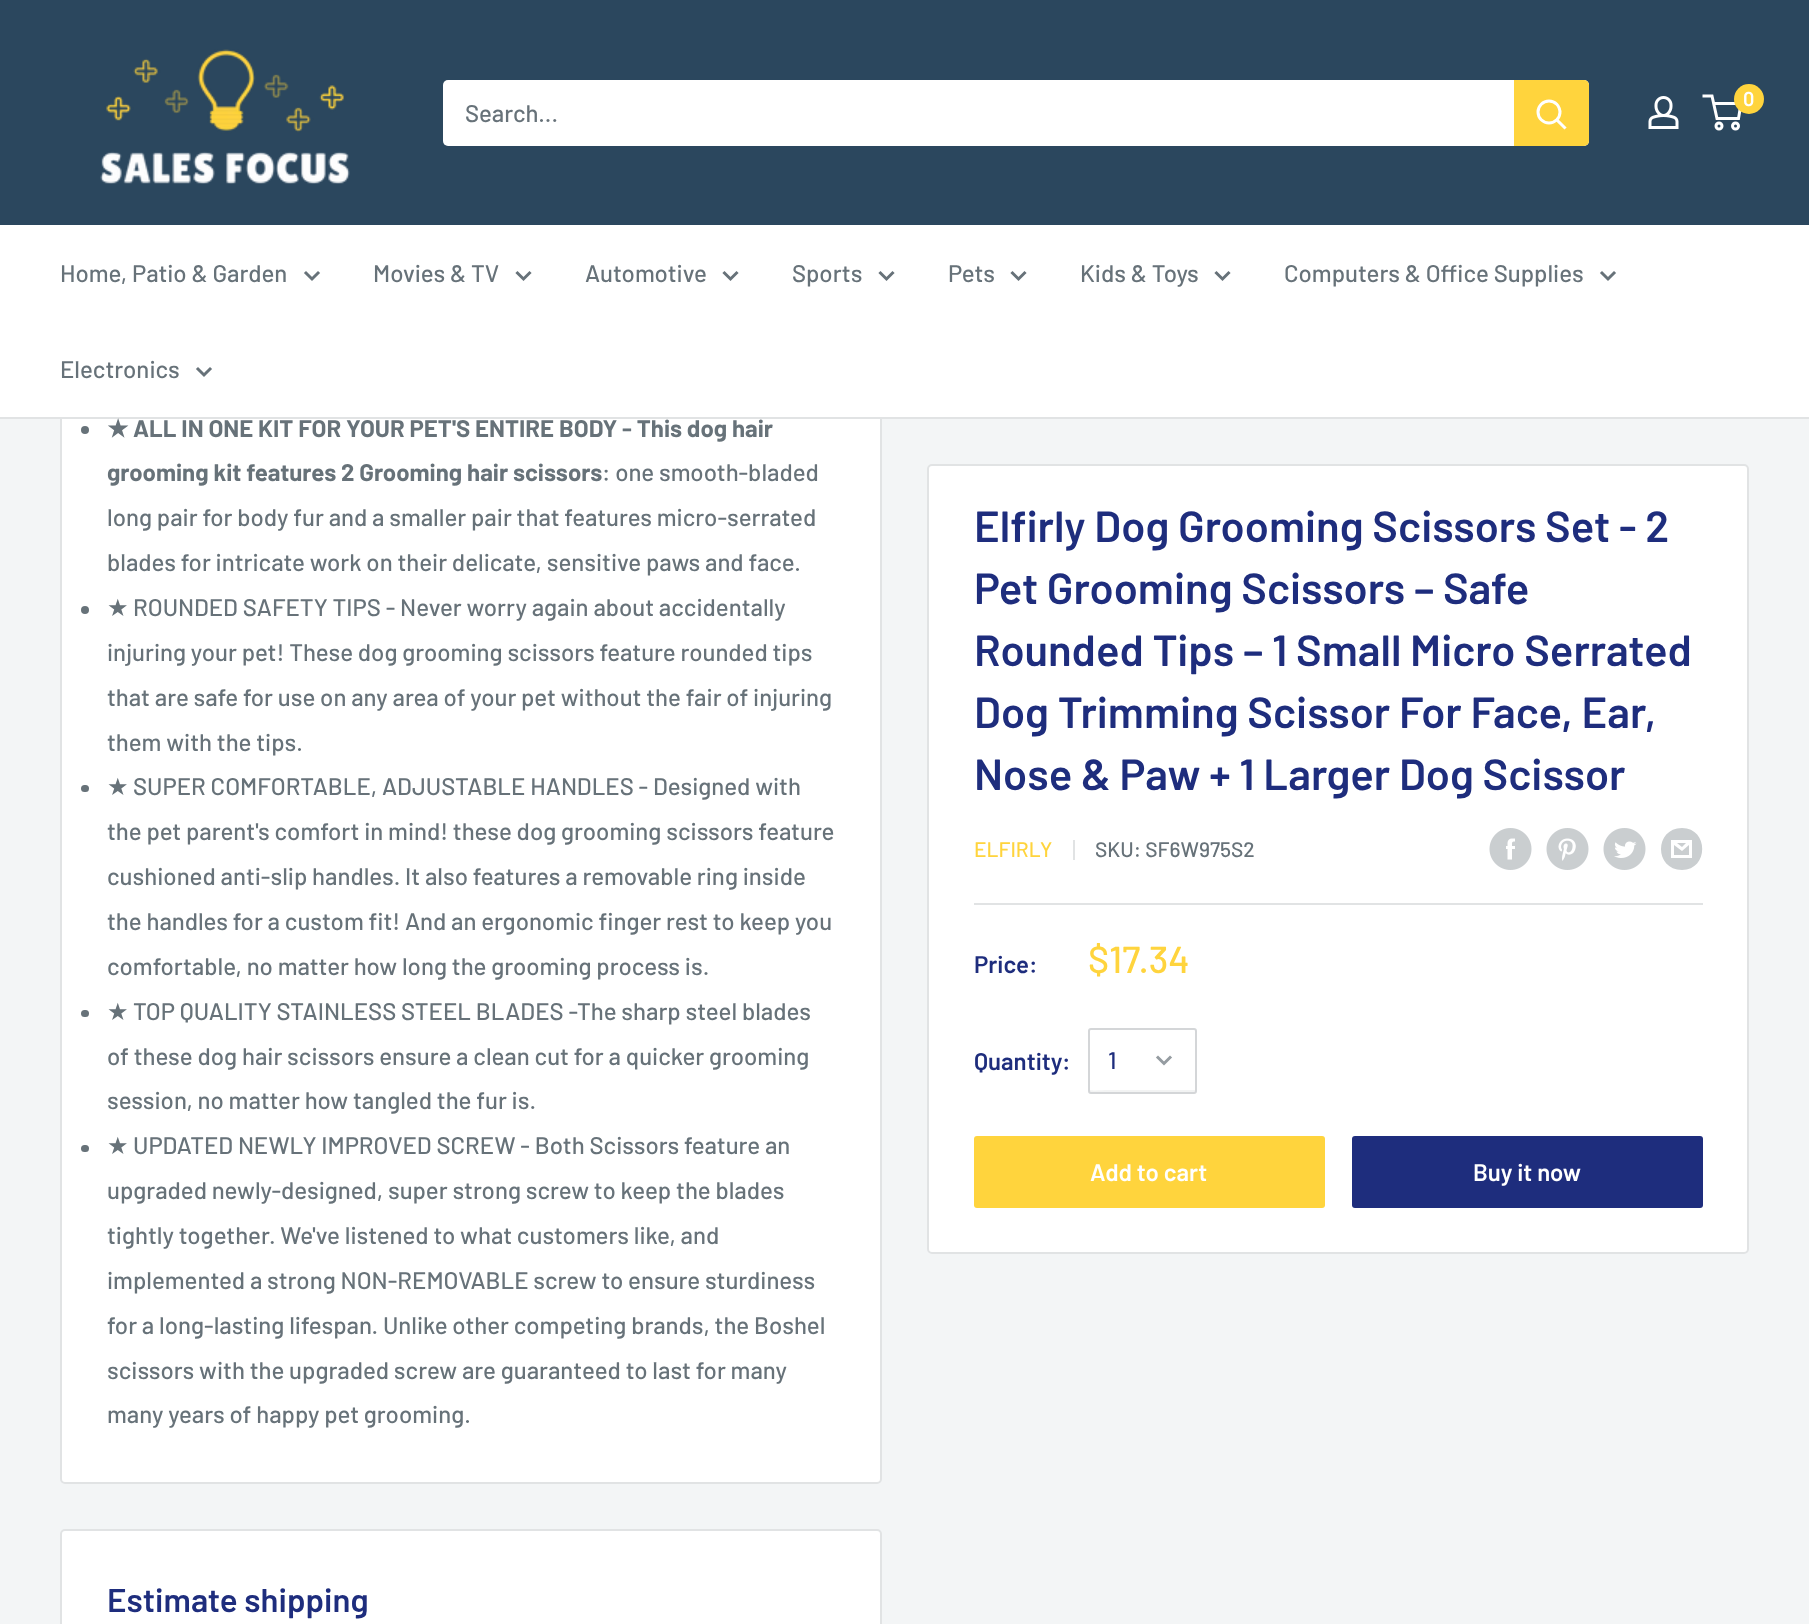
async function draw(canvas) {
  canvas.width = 1809
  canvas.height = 1624
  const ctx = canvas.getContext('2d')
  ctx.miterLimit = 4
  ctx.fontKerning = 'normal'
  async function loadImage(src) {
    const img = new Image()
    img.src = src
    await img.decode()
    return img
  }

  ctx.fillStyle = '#f3f5f6'
  ctx.fillRect(0, 0, 1809, 1624)
  ctx.fillStyle = '#2b475e'
  ctx.fillRect(0, 0, 1809, 225)
  ctx.drawImage(await loadImage('image0.png'), 100, 49, 250, 135)
  ctx.drawImage(await loadImage('image1.png'), 1648, 96, 31, 33)
  ctx.beginPath()
  ctx.arc(1719, 126, 3, 0, 2 * Math.PI)
  ctx.strokeStyle = '#fff'
  ctx.lineWidth = 3
  ctx.stroke()
  ctx.beginPath()
  ctx.arc(1735.5, 126, 3, 0, 2 * Math.PI)
  ctx.stroke()
  ctx.beginPath()
  ctx.moveTo(1713.5, 103.5)
  ctx.lineTo(1741, 103.5)
  ctx.lineTo(1738.5, 118.5)
  ctx.lineTo(1717, 118.5)
  ctx.lineTo(1712, 96)
  ctx.lineTo(1702.5, 96)
  ctx.stroke()
  ctx.fillStyle = '#ffd43d'
  ctx.beginPath()
  ctx.arc(1749, 99, 15, 0, 2 * Math.PI)
  ctx.fill()
  ctx.font = '600 20px Barlow'
  ctx.fillStyle = '#fff'
  ctx.fillText('0', 1743, 106)
  ctx.beginPath()
  ctx.roundRect(443, 80, 1146, 66, 5)
  ctx.fill()
  ctx.font = '500 24px Barlow'
  ctx.fillStyle = '#677279'
  ctx.fillText('Search...', 465, 122)
  ctx.fillStyle = '#ffd43d'
  ctx.beginPath()
  ctx.roundRect(1514, 80, 75, 66, [0, 5, 5, 0])
  ctx.fill()
  ctx.beginPath()
  ctx.moveTo(1564.5, 127.5)
  ctx.lineTo(1557, 120)
  ctx.lineCap = 'square'
  ctx.stroke()
  ctx.beginPath()
  ctx.arc(1549, 112, 11, 0, 2 * Math.PI)
  ctx.stroke()
  ctx.fillStyle = '#fff'
  ctx.beginPath()
  ctx.roundRect(61, 276, 820, 1207, 4)
  ctx.fill()
  ctx.strokeStyle = '#e1e3e4'
  ctx.lineWidth = 2
  ctx.stroke()
  ctx.fillRect(0, 225, 1809, 192)
  ctx.fillStyle = '#e1e3e4'
  ctx.fillRect(0, 417, 1809, 2)
  ctx.fillStyle = '#677279'
  ctx.fillText('Home, Patio & Garden', 60, 282)
  ctx.beginPath()
  ctx.moveTo(318, 273)
  ctx.lineTo(312, 279)
  ctx.lineTo(306, 273)
  ctx.strokeStyle = '#677279'
  ctx.lineWidth = 3
  ctx.stroke()
  ctx.fillText('Movies & TV', 373, 282)
  ctx.beginPath()
  ctx.moveTo(529.5, 273)
  ctx.lineTo(523.5, 279)
  ctx.lineTo(517.5, 273)
  ctx.stroke()
  ctx.fillText('Automotive', 585, 282)
  ctx.beginPath()
  ctx.moveTo(736.5, 273)
  ctx.lineTo(730.5, 279)
  ctx.lineTo(724.5, 273)
  ctx.stroke()
  ctx.fillText('Sports', 792, 282)
  ctx.beginPath()
  ctx.moveTo(892.5, 273)
  ctx.lineTo(886.5, 279)
  ctx.lineTo(880.5, 273)
  ctx.stroke()
  ctx.fillText('Pets', 948, 282)
  ctx.beginPath()
  ctx.moveTo(1024.5, 273)
  ctx.lineTo(1018.5, 279)
  ctx.lineTo(1012.5, 273)
  ctx.stroke()
  ctx.fillText('Kids & Toys', 1080, 282)
  ctx.beginPath()
  ctx.moveTo(1228.5, 273)
  ctx.lineTo(1222.5, 279)
  ctx.lineTo(1216.5, 273)
  ctx.stroke()
  ctx.fillText('Computers & Office Supplies', 1284, 282)
  ctx.beginPath()
  ctx.moveTo(1614, 273)
  ctx.lineTo(1608, 279)
  ctx.lineTo(1602, 273)
  ctx.stroke()
  ctx.fillText('Electronics', 60, 378)
  ctx.beginPath()
  ctx.moveTo(210, 369)
  ctx.lineTo(204, 375)
  ctx.lineTo(198, 369)
  ctx.stroke()
  ctx.beginPath()
  ctx.arc(85, 430, 4, 0, 2 * Math.PI)
  ctx.fill()
  ctx.font = 'bold 24px DejaVu Sans'
  ctx.fillText('★', 107, 437)
  ctx.font = 'bold 24px Barlow'
  ctx.fillText('ALL IN ONE KIT FOR YOUR PET\'S ENTIRE BODY - This dog hair', 133, 437)
  ctx.fillText('grooming kit features 2 Grooming hair scissors', 107, 481)
  ctx.font = '500 24px Barlow'
  ctx.fillText(': one smooth-bladed', 602, 481)
  ctx.fillText('long pair for body fur and a smaller pair that features micro-serrated', 107, 526)
  ctx.fillText('blades for intricate work on their delicate, sensitive paws and face.', 107, 571)
  ctx.beginPath()
  ctx.arc(85, 610, 4, 0, 2 * Math.PI)
  ctx.fill()
  ctx.font = '24px DejaVu Sans'
  ctx.fillText('★', 107, 616)
  ctx.font = '500 24px Barlow'
  ctx.fillText('ROUNDED SAFETY TIPS - Never worry again about accidentally', 133, 616)
  ctx.fillText('injuring your pet! These dog grooming scissors feature rounded tips', 107, 661)
  ctx.fillText('that are safe for use on any area of your pet without the fair of injuring', 107, 706)
  ctx.fillText('them with the tips.', 107, 751)
  ctx.beginPath()
  ctx.roundRect(81, 785, 8, 7, 3.5)
  ctx.fill()
  ctx.font = '24px DejaVu Sans'
  ctx.fillText('★', 107, 795)
  ctx.font = '500 24px Barlow'
  ctx.fillText('SUPER COMFORTABLE, ADJUSTABLE HANDLES - Designed with', 133, 795)
  ctx.fillText('the pet parent\'s comfort in mind! these dog grooming scissors feature', 107, 840)
  ctx.fillText('cushioned anti-slip handles. It also features a removable ring inside', 107, 885)
  ctx.fillText('the handles for a custom fit! And an ergonomic finger rest to keep you', 107, 930)
  ctx.fillText('comfortable, no matter how long the grooming process is.', 107, 975)
  ctx.beginPath()
  ctx.roundRect(81, 1010, 8, 7, 3.5)
  ctx.fill()
  ctx.font = '24px DejaVu Sans'
  ctx.fillText('★', 107, 1020)
  ctx.font = '500 24px Barlow'
  ctx.fillText('TOP QUALITY STAINLESS STEEL BLADES -The sharp steel blades', 133, 1020)
  ctx.fillText('of these dog hair scissors ensure a clean cut for a quicker grooming', 107, 1065)
  ctx.fillText('session, no matter how tangled the fur is.', 107, 1109)
  ctx.beginPath()
  ctx.roundRect(81, 1145, 8, 7, 3.5)
  ctx.fill()
  ctx.font = '24px DejaVu Sans'
  ctx.fillText('★', 107, 1154)
  ctx.font = '500 24px Barlow'
  ctx.fillText('UPDATED NEWLY IMPROVED SCREW - Both Scissors feature an', 133, 1154)
  ctx.fillText('upgraded newly-designed, super strong screw to keep the blades', 107, 1199)
  ctx.fillText('tightly together. We\'ve listened to what customers like, and', 107, 1244)
  ctx.fillText('implemented a strong NON-REMOVABLE screw to ensure sturdiness', 107, 1289)
  ctx.fillText('for a long-lasting lifespan. Unlike other competing brands, the Boshel', 107, 1334)
  ctx.fillText('scissors with the upgraded screw are guaranteed to last for many', 107, 1379)
  ctx.fillText('many years of happy pet grooming.', 107, 1423)
  ctx.fillStyle = '#fff'
  ctx.beginPath()
  ctx.roundRect(928, 465, 820, 788, 4)
  ctx.fill()
  ctx.strokeStyle = '#e1e3e4'
  ctx.lineWidth = 2
  ctx.stroke()
  ctx.font = '600 43.5px Barlow'
  ctx.fillStyle = '#1e2d7d'
  ctx.fillText('Elfirly Dog Grooming Scissors Set - 2', 974, 542)
  ctx.fillText('Pet Grooming Scissors – Safe', 974, 604)
  ctx.fillText('Rounded Tips – 1 Small Micro Serrated', 974, 666)
  ctx.fillText('Dog Trimming Scissor For Face, Ear,', 974, 728)
  ctx.fillText('Nose & Paw + 1 Larger Dog Scissor', 974, 790)
  ctx.font = '500 21px Barlow'
  ctx.fillStyle = '#ffd43d'
  ctx.fillText('ELFIRLY', 974, 857)
  ctx.fillStyle = '#e1e3e4'
  ctx.fillRect(1073, 840, 2, 20)
  ctx.fillStyle = '#677279'
  ctx.fillText('SKU: SF6W975S2', 1095, 857)
  ctx.drawImage(await loadImage('image2.png'), 1489, 828, 43, 42)
  ctx.drawImage(await loadImage('image3.png'), 1546, 828, 43, 42)
  ctx.drawImage(await loadImage('image4.png'), 1603, 828, 43, 42)
  ctx.fillStyle = '#caced0'
  ctx.beginPath()
  ctx.moveTo(1682, 870)
  ctx.bezierCurveTo(1654, 870, 1654, 828, 1682, 828)
  ctx.bezierCurveTo(1709, 828, 1709, 870, 1682, 870)
  ctx.closePath()
  ctx.moveTo(1677, 843)
  ctx.lineTo(1686, 843)
  ctx.lineTo(1682, 847)
  ctx.closePath()
  ctx.moveTo(1689, 845)
  ctx.lineTo(1689, 855)
  ctx.lineTo(1674, 855)
  ctx.lineTo(1674, 845)
  ctx.lineTo(1682, 851)
  ctx.closePath()
  ctx.moveTo(1692, 840)
  ctx.lineTo(1671, 840)
  ctx.lineTo(1671, 858)
  ctx.lineTo(1692, 858)
  ctx.closePath()
  ctx.fill()
  ctx.fillStyle = '#e1e3e4'
  ctx.fillRect(974, 903, 729, 2)
  ctx.font = '600 24px Barlow'
  ctx.fillStyle = '#1e2d7d'
  ctx.fillText('Price:', 974, 973)
  ctx.font = '500 37.5px Barlow'
  ctx.fillStyle = '#ffd43d'
  ctx.fillText('$17.34', 1088, 973)
  ctx.font = '600 24px Barlow'
  ctx.fillStyle = '#1e2d7d'
  ctx.fillText('Quantity:', 974, 1070)
  ctx.fillStyle = '#f2f3f3'
  ctx.beginPath()
  ctx.moveTo(1089, 1089)
  ctx.lineTo(1089, 1090)
  ctx.bezierCurveTo(1089, 1091, 1090, 1092, 1090, 1092)
  ctx.lineTo(1194, 1092)
  ctx.bezierCurveTo(1195, 1092, 1196, 1091, 1196, 1090)
  ctx.lineTo(1196, 1049)
  ctx.lineTo(1195, 1090)
  ctx.lineTo(1108, 1090)
  ctx.bezierCurveTo(1104, 1090, 1093, 1091, 1090, 1090)
  ctx.closePath()
  ctx.fill()
  ctx.beginPath()
  ctx.roundRect(1089, 1029, 107, 64, 2)
  ctx.strokeStyle = '#d4d6d8'
  ctx.stroke()
  ctx.font = '500 24px Barlow'
  ctx.fillStyle = '#1e2d7d'
  ctx.fillText('1', 1108, 1069)
  ctx.beginPath()
  ctx.moveTo(1170, 1057.5)
  ctx.lineTo(1164, 1063.5)
  ctx.lineTo(1158, 1057.5)
  ctx.strokeStyle = '#959ca1'
  ctx.lineWidth = 3
  ctx.stroke()
  ctx.fillStyle = '#ffd43d'
  ctx.beginPath()
  ctx.roundRect(974, 1136, 351, 72, 3)
  ctx.fill()
  ctx.font = '600 24px Barlow'
  ctx.fillStyle = '#fff'
  ctx.fillText('Add to cart', 1090, 1181)
  ctx.fillStyle = '#1e2d7d'
  ctx.beginPath()
  ctx.roundRect(1352, 1136, 351, 72, 3)
  ctx.fill()
  ctx.fillStyle = '#fff'
  ctx.fillText('Buy it now', 1473, 1181)
  ctx.beginPath()
  ctx.roundRect(61, 1530, 820, 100, 4)
  ctx.fill()
  ctx.strokeStyle = '#e1e3e4'
  ctx.lineWidth = 2
  ctx.stroke()
  ctx.font = '600 33px Barlow'
  ctx.fillStyle = '#1e2d7d'
  ctx.fillText('Estimate shipping', 107, 1612)
}

draw(document.querySelector('canvas'))
